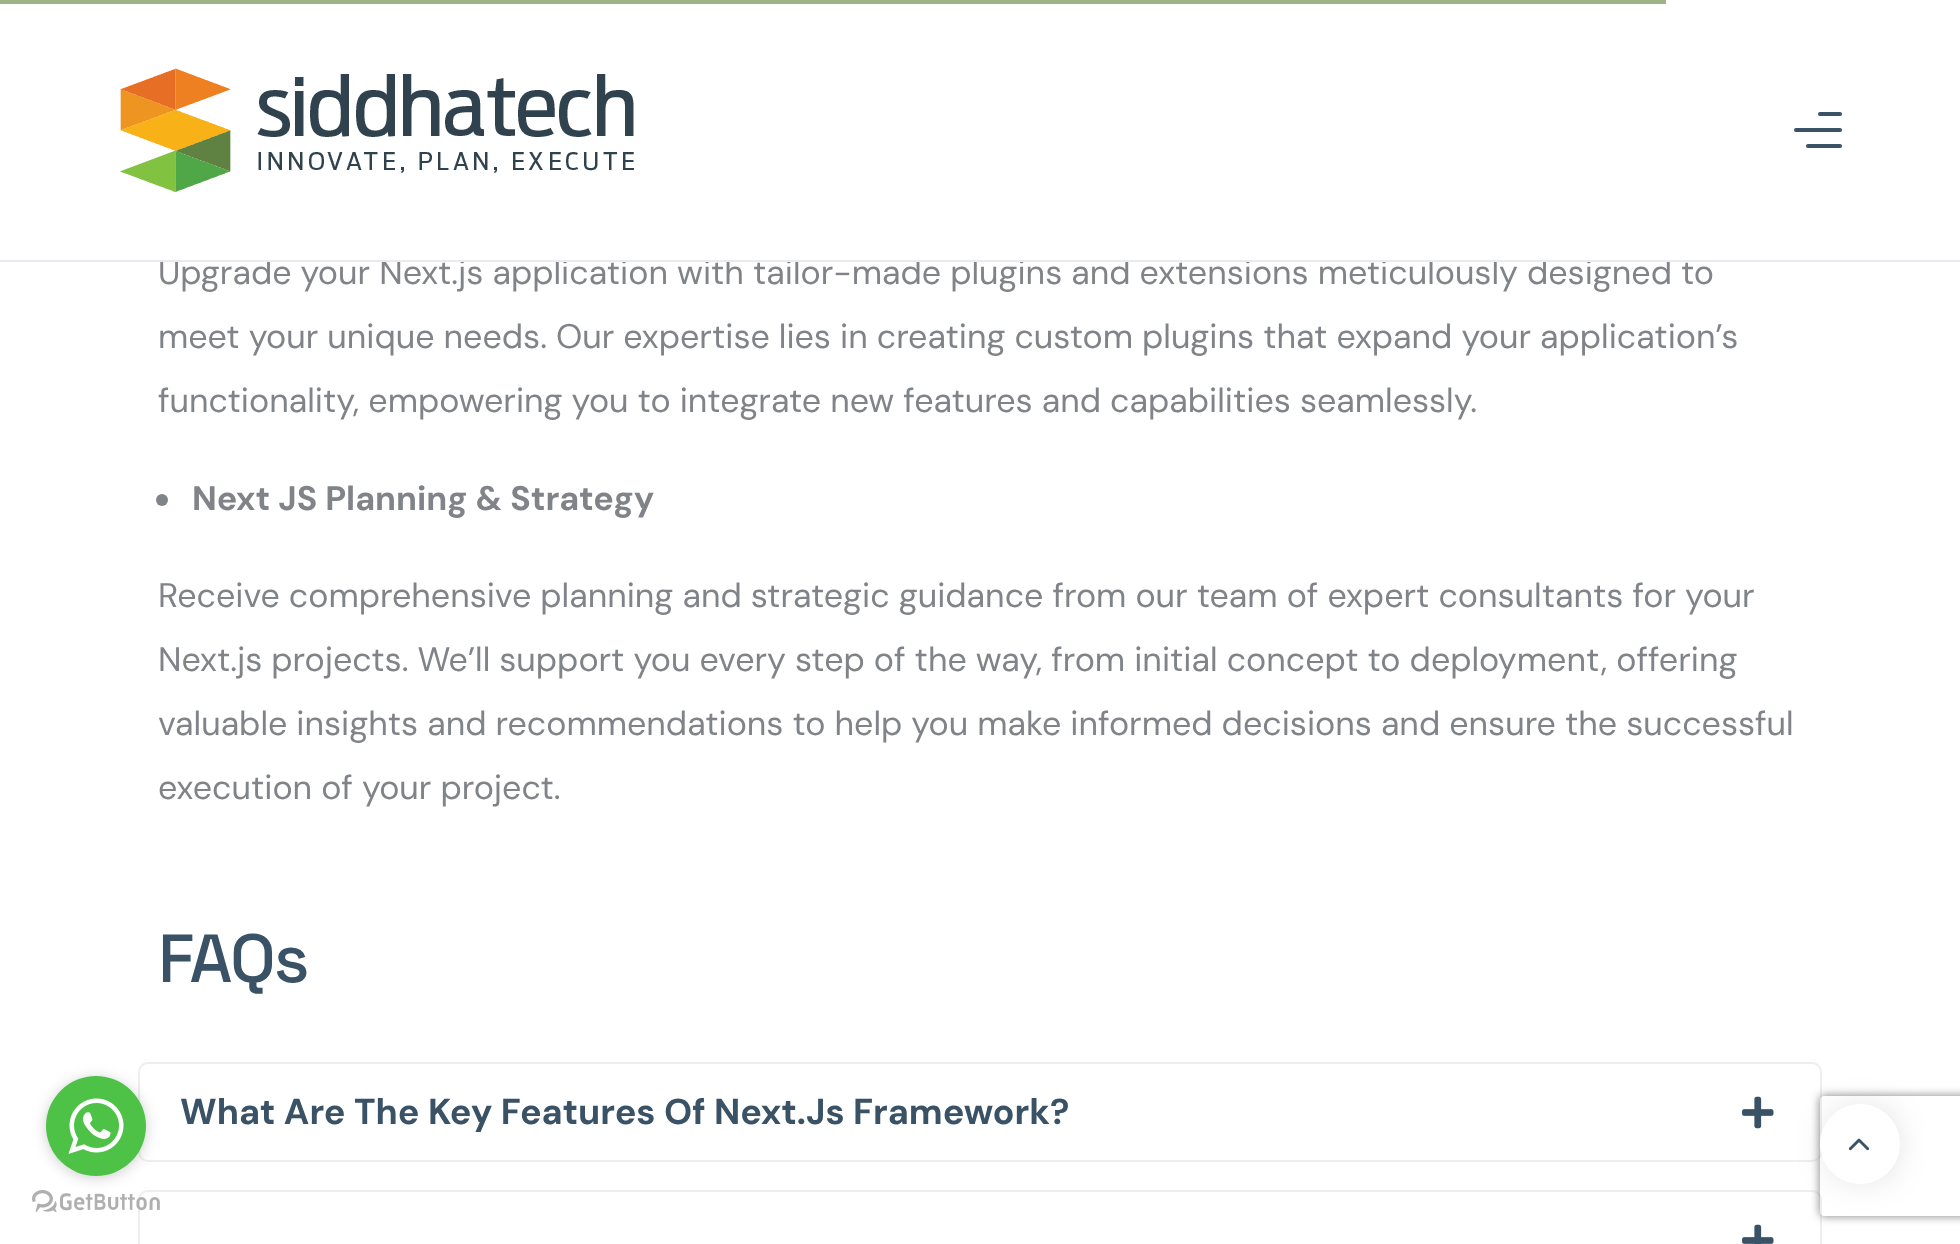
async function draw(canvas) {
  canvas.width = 1960
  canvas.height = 1244
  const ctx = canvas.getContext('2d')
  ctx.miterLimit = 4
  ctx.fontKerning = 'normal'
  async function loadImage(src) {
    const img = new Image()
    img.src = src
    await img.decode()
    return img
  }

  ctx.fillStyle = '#fff'
  ctx.fillRect(0, 0, 1960, 1244)
  ctx.beginPath()
  ctx.roundRect(139, 1191, 1682, 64, 9)
  ctx.strokeStyle = '#eee'
  ctx.lineWidth = 2
  ctx.stroke()
  ctx.drawImage(await loadImage('image1.png'), 32, 1190, 128, 22)
  ctx.beginPath()
  ctx.roundRect(139, 1063, 1682, 98, 9)
  ctx.stroke()
  ctx.fillStyle = '#88888866'
  ctx.filter = 'blur(7px)'
  ctx.beginPath()
  ctx.roundRect(46, 1078, 100, 100, 50)
  ctx.fill()
  ctx.filter = 'none'
  ctx.fillStyle = '#4dc247'
  ctx.beginPath()
  ctx.arc(96, 1126, 50, 0, 2 * Math.PI)
  ctx.fill()
  ctx.drawImage(await loadImage('image0.png'), 68, 1098, 56, 56)
  ctx.fillStyle = '#9bb385'
  ctx.fillRect(0, 0, 1666, 4)
  ctx.font = '34px DM Sans'
  ctx.fillStyle = '#808489'
  ctx.fillText('Upgrade your Next.js application with tailor-made plugins and extensions meticulously designed to', 158, 284)
  ctx.fillStyle = '#eae9f2'
  ctx.fillRect(0, 260, 1960, 2)
  ctx.drawImage(await loadImage('image2.png'), 120, 68, 514, 124)
  ctx.fillStyle = '#3a5266'
  ctx.beginPath()
  ctx.roundRect(1818, 112, 24, 4, 2)
  ctx.fill()
  ctx.beginPath()
  ctx.roundRect(1794, 128, 48, 4, 2)
  ctx.fill()
  ctx.beginPath()
  ctx.roundRect(1806, 144, 36, 4, 2)
  ctx.fill()
  ctx.fillStyle = '#fff'
  ctx.fillRect(267, 259, 1403, 1)
  ctx.fillStyle = '#808489'
  ctx.fillText('meet your unique needs. Our expertise lies in creating custom plugins that expand your application’s', 158, 348)
  ctx.fillText('functionality, empowering you to integrate new features and capabilities seamlessly.', 158, 412)
  ctx.beginPath()
  ctx.arc(162, 500, 6, 0, 2 * Math.PI)
  ctx.fill()
  ctx.font = 'bold 34px DM Sans'
  ctx.fillText('Next JS Planning & Strategy', 192, 510)
  ctx.font = '34px DM Sans'
  ctx.fillText('Receive comprehensive planning and strategic guidance from our team of expert consultants for your', 158, 607)
  ctx.fillText('Next.js projects. We’ll support you every step of the way, from initial concept to deployment, offering', 158, 671)
  ctx.fillText('valuable insights and recommendations to help you make informed decisions and ensure the successful', 158, 735)
  ctx.fillText('execution of your project.', 158, 799)
  ctx.letterSpacing = '-2px'
  ctx.font = '500 68px Space Grotesk'
  ctx.fillStyle = '#3a5266'
  ctx.fillText('FAQs', 158, 982)
  ctx.letterSpacing = '0px'
  ctx.font = 'bold 36px DM Sans'
  ctx.fillText('What Are The Key Features Of Next.Js Framework?', 180, 1124)
  ctx.drawImage(await loadImage('image3.png'), 1742, 1096, 32, 33)
  ctx.drawImage(await loadImage('image4.png'), 1742, 1224, 32, 20)
  ctx.fillStyle = '#00000066'
  ctx.filter = 'blur(22px)'
  ctx.beginPath()
  ctx.roundRect(1840, 1122, 44, 44, 22)
  ctx.fill()
  ctx.filter = 'none'
  ctx.save()
  ctx.beginPath()
  ctx.moveTo(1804, 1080)
  ctx.lineTo(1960, 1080)
  ctx.lineTo(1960, 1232)
  ctx.lineTo(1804, 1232)
  ctx.closePath()
  ctx.moveTo(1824, 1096)
  ctx.lineTo(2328, 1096)
  ctx.bezierCurveTo(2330, 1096, 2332, 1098, 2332, 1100)
  ctx.lineTo(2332, 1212)
  ctx.bezierCurveTo(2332, 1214, 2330, 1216, 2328, 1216)
  ctx.lineTo(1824, 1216)
  ctx.bezierCurveTo(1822, 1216, 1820, 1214, 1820, 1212)
  ctx.lineTo(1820, 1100)
  ctx.bezierCurveTo(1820, 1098, 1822, 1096, 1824, 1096)
  ctx.closePath()
  ctx.clip('evenodd')
  ctx.fillStyle = '#808080'
  ctx.filter = 'blur(5px)'
  ctx.beginPath()
  ctx.roundRect(1820, 1096, 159, 120, 4)
  ctx.fill()
  ctx.filter = 'none'
  ctx.restore()
  ctx.fillStyle = '#fff'
  ctx.beginPath()
  ctx.moveTo(1860, 1184)
  ctx.bezierCurveTo(1838, 1184, 1820, 1166, 1820, 1144)
  ctx.bezierCurveTo(1820, 1122, 1838, 1104, 1860, 1104)
  ctx.bezierCurveTo(1882, 1104, 1900, 1122, 1900, 1144)
  ctx.bezierCurveTo(1900, 1166, 1882, 1184, 1860, 1184)
  ctx.closePath()
  ctx.fill()
  ctx.drawImage(await loadImage('image5.png'), 1848, 1138, 22, 13)
}

draw(document.querySelector('canvas'))
